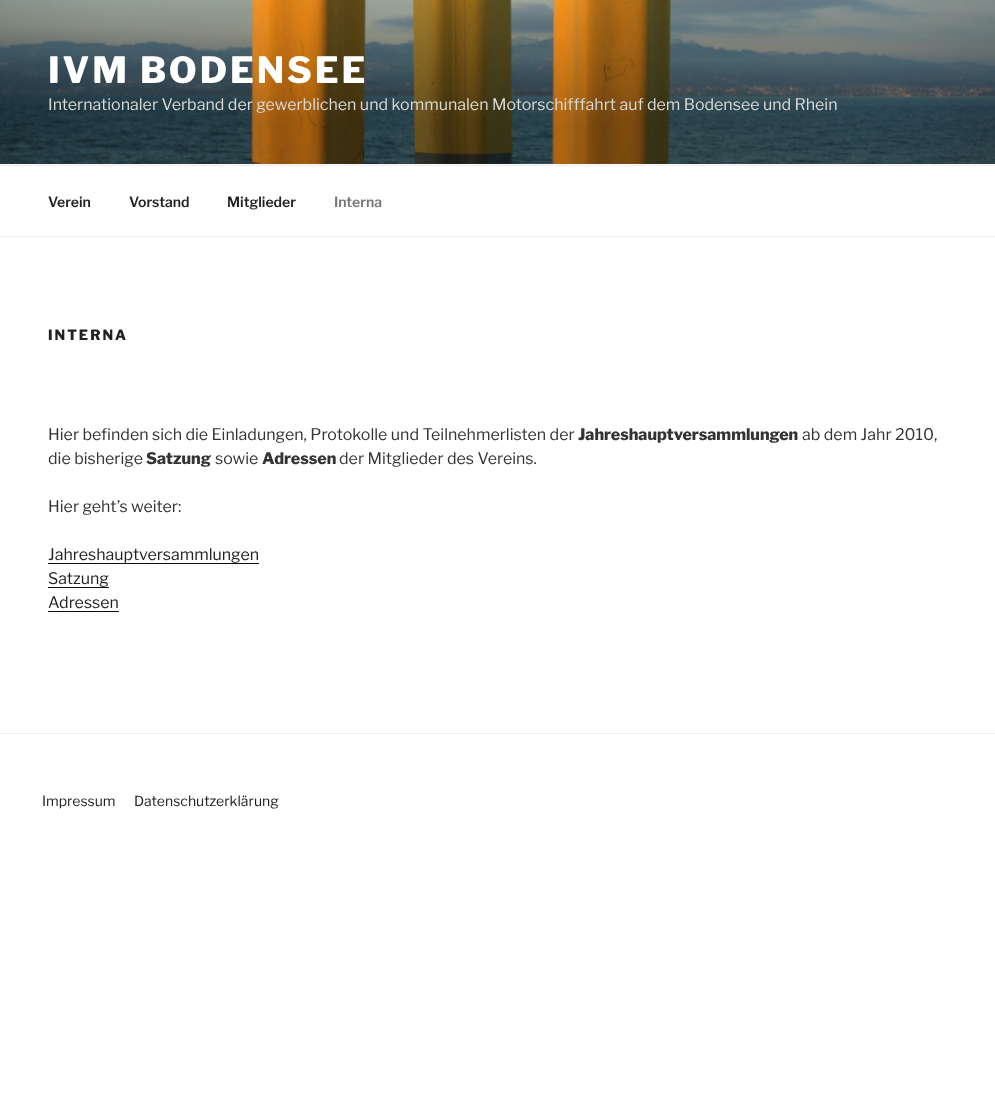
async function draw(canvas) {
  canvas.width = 995
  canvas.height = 1117
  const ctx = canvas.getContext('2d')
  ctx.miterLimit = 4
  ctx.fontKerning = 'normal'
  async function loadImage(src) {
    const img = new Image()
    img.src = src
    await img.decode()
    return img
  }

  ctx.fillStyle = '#fff'
  ctx.fillRect(0, 0, 995, 1117)
  ctx.fillStyle = '#fafafa'
  ctx.fillRect(0, 164, 995, 1)
  ctx.drawImage(await loadImage('image0.png'), 0, 0, 995, 164)
  ctx.letterSpacing = '2.9px'
  ctx.font = '100 36px "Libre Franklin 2"'
  ctx.fillStyle = '#fff'
  ctx.fillText('IVM BODENSEE', 48, 83)
  ctx.letterSpacing = '0px'
  ctx.font = '100 16px Libre Franklin'
  ctx.fillStyle = '#dadad6'
  ctx.fillText('Internationaler Verband der gewerblichen und kommunalen Motorschifffahrt auf dem Bodensee und Rhein', 48, 110)
  ctx.fillStyle = '#eee'
  ctx.fillRect(0, 165, 995, 1)
  ctx.fillRect(0, 236, 995, 1)
  ctx.font = '100 14px "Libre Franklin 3"'
  ctx.fillStyle = '#222'
  ctx.fillText('Verein', 48, 207)
  ctx.fillText('Vorstand', 129, 207)
  ctx.fillText('Mitglieder', 227, 207)
  ctx.fillStyle = '#767676'
  ctx.fillText('Interna', 334, 207)
  ctx.letterSpacing = '2px'
  ctx.font = '100 14px "Libre Franklin 2"'
  ctx.fillStyle = '#222'
  ctx.fillText('INTERNA', 48, 340)
  ctx.letterSpacing = '0px'
  ctx.font = '100 16px Libre Franklin'
  ctx.fillStyle = '#333'
  ctx.fillText('Hier befinden sich die Einladungen, Protokolle und Teilnehmerlisten der', 48, 440)
  ctx.font = '100 16px "Libre Franklin 2"'
  ctx.fillText('Jahreshauptversammlungen', 578, 440)
  ctx.font = '100 16px Libre Franklin'
  ctx.fillText('ab dem Jahr 2010,', 802, 440)
  ctx.fillText('die bisherige', 48, 464)
  ctx.font = '100 16px "Libre Franklin 2"'
  ctx.fillText('Satzung', 146, 464)
  ctx.font = '100 16px Libre Franklin'
  ctx.fillText('sowie', 215, 464)
  ctx.font = '100 16px "Libre Franklin 2"'
  ctx.fillText('Adressen', 262, 464)
  ctx.font = '100 16px Libre Franklin'
  ctx.fillText('der Mitglieder des Vereins.', 339, 464)
  ctx.fillText('Hier geht’s weiter:', 48, 512)
  ctx.fillStyle = '#222'
  ctx.fillText('Jahreshauptversammlungen', 48, 560)
  ctx.fillStyle = '#0f0f0f'
  ctx.fillRect(48, 563, 211, 1)
  ctx.fillStyle = '#222'
  ctx.fillText('Satzung', 48, 584)
  ctx.fillStyle = '#0f0f0f'
  ctx.fillRect(48, 587, 61, 1)
  ctx.fillStyle = '#222'
  ctx.fillText('Adressen', 48, 608)
  ctx.fillStyle = '#0f0f0f'
  ctx.fillRect(48, 611, 71, 1)
  ctx.fillStyle = '#eee'
  ctx.fillRect(0, 733, 995, 1)
  ctx.font = '100 14px Libre Franklin'
  ctx.fillStyle = '#222'
  ctx.fillText('Impressum', 42, 806)
  ctx.fillText('Datenschutzerklärung', 134, 806)
}

draw(document.querySelector('canvas'))
